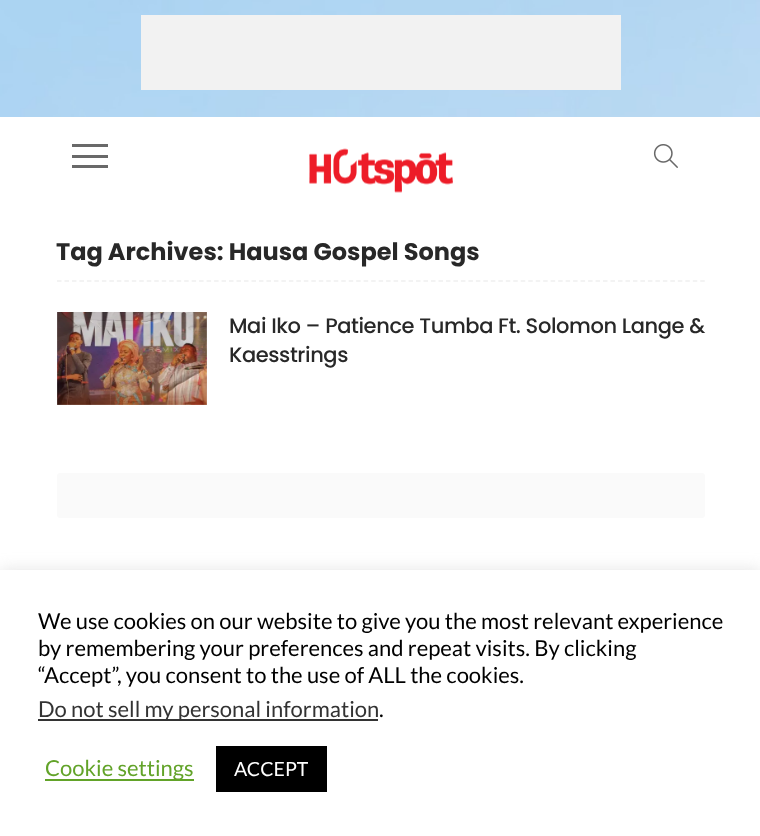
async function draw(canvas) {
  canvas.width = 760
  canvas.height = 836
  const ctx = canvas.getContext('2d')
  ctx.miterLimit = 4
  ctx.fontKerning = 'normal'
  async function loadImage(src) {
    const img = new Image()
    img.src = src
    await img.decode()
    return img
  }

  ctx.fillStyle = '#fff'
  ctx.fillRect(0, 0, 760, 836)
  ctx.drawImage(await loadImage('image0.png'), 0, 0, 760, 117)
  ctx.fillStyle = '#f2f2f2'
  ctx.fillRect(141, 15, 480, 75)
  ctx.fillStyle = '#696969'
  ctx.fillRect(72, 155, 36, 3)
  ctx.fillRect(72, 144, 36, 3)
  ctx.fillRect(72, 165, 36, 3)
  ctx.drawImage(await loadImage('image1.png'), 309, 148, 144, 45)
  ctx.drawImage(await loadImage('image2.png'), 653, 144, 25, 24)
  ctx.beginPath()
  ctx.moveTo(57, 281)
  ctx.lineTo(705, 281)
  ctx.strokeStyle = '#efefef'
  ctx.lineWidth = 1.5
  ctx.setLineDash([4.5, 2.98])
  ctx.stroke()
  ctx.font = 'bold 24px Poppins'
  ctx.fillStyle = '#282828'
  ctx.fillText('Tag Archives: Hausa Gospel Songs', 56, 260)
  ctx.drawImage(await loadImage('image3.png'), 57, 312, 150, 93)
  ctx.letterSpacing = '-0.4px'
  ctx.font = '500 21px Poppins'
  ctx.fillText('Mai Iko – Patience Tumba Ft. Solomon Lange &', 229, 333)
  ctx.fillText('Kaesstrings', 229, 362)
  ctx.fillStyle = '#fafafa'
  ctx.beginPath()
  ctx.roundRect(57, 473, 648, 45, 3)
  ctx.fill()
  ctx.fillStyle = '#acabab4d'
  ctx.filter = 'blur(7.5px)'
  ctx.beginPath()
  ctx.rect(0, 569, 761, 267)
  ctx.fill()
  ctx.filter = 'none'
  ctx.fillStyle = '#fff'
  ctx.fillRect(0, 570, 760, 266)
  ctx.letterSpacing = '0px'
  ctx.font = '22px Lato'
  ctx.fillStyle = '#000'
  ctx.fillText('We use cookies on our website to give you the most relevant experience', 38, 629)
  ctx.fillText('by remembering your preferences and repeat visits. By clicking', 38, 656)
  ctx.fillText('“Accept”, you consent to the use of ALL the cookies.', 38, 683)
  ctx.fillStyle = '#333'
  ctx.fillRect(38, 719, 340, 2)
  ctx.fillText('Do not sell my personal information', 38, 717)
  ctx.fillStyle = '#000'
  ctx.fillText('.', 379, 717)
  ctx.fillStyle = '#62a329'
  ctx.fillRect(45, 779, 149, 2)
  ctx.fillText('Cookie settings', 45, 776)
  ctx.fillStyle = '#000'
  ctx.fillRect(216, 746, 111, 46)
  ctx.font = '19.5px Lato'
  ctx.fillStyle = '#fff'
  ctx.fillText('ACCEPT', 234, 776)
}

draw(document.querySelector('canvas'))
